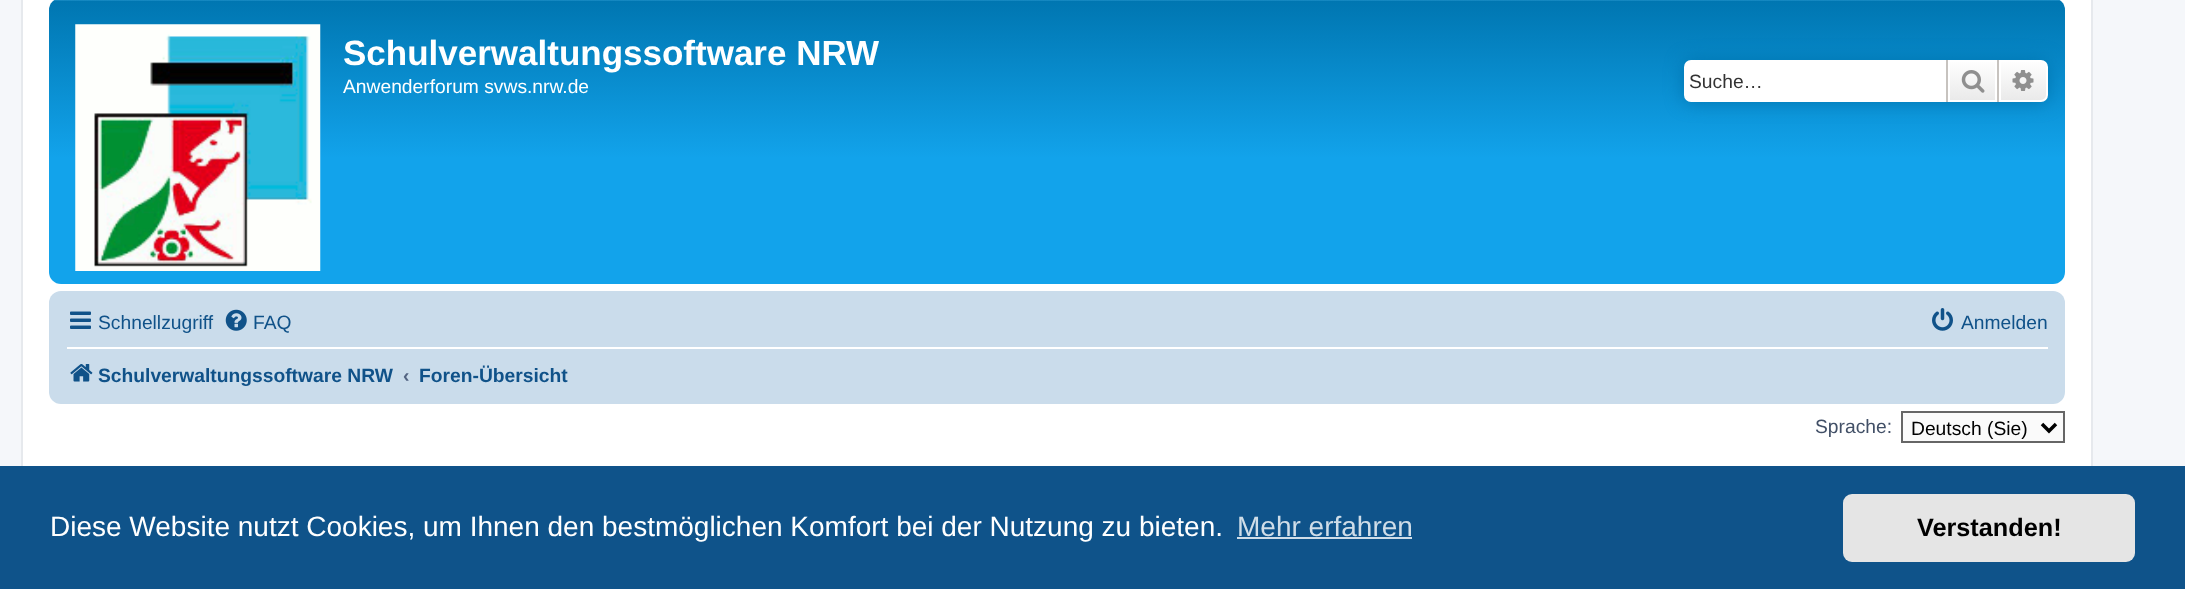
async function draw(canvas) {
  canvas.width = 2185
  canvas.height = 589
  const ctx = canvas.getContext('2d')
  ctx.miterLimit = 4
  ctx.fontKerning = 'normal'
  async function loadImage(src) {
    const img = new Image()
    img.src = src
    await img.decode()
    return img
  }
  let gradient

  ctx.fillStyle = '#f5f7fa'
  ctx.fillRect(0, 0, 2185, 589)
  ctx.fillStyle = '#fff'
  ctx.fillRect(23, 0, 2068, 466)
  ctx.strokeStyle = '#e6e9ed'
  ctx.lineWidth = 2
  ctx.strokeRect(22, -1, 2070, 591)
  gradient = ctx.createLinearGradient(1057, -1.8, 1057, 284)
  gradient.addColorStop(0, '#6aceff')
  gradient.addColorStop(0.01, '#0076b1')
  gradient.addColorStop(0.56, '#12a3eb')
  gradient.addColorStop(1, '#12a3eb')
  ctx.fillStyle = gradient
  ctx.beginPath()
  ctx.roundRect(49, -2, 2016, 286, 12)
  ctx.fill()
  ctx.drawImage(await loadImage('image0.png'), 75, 24, 246, 247)
  ctx.font = 'bold 35px Liberation Sans'
  ctx.fillStyle = '#fff'
  ctx.fillText('Schulverwaltungssoftware NRW', 343, 65)
  ctx.font = '19.25px Liberation Sans'
  ctx.fillText('Anwenderforum svws.nrw.de', 343, 93)
  ctx.fillStyle = '#0075b0'
  ctx.filter = 'blur(9px)'
  ctx.beginPath()
  ctx.roundRect(1684, 60, 364, 42, 7)
  ctx.fill()
  ctx.filter = 'none'
  ctx.fillStyle = '#fff'
  ctx.beginPath()
  ctx.roundRect(1684, 60, 262, 42, [7, 0, 0, 7])
  ctx.fill()
  ctx.fillStyle = '#333'
  ctx.fillText('Suche…', 1689, 88)
  gradient = ctx.createLinearGradient(1972, 60, 1972, 102)
  gradient.addColorStop(0, '#fff')
  gradient.addColorStop(1, '#e9e9e9')
  ctx.fillStyle = gradient
  ctx.fillRect(1950, 62, 45, 38)
  ctx.strokeStyle = '#fff'
  ctx.strokeRect(1949, 61, 47, 40)
  ctx.fillStyle = '#c7c3bf'
  ctx.fillRect(1997, 60, 2, 42)
  ctx.fillRect(1946, 60, 2, 42)
  ctx.drawImage(await loadImage('image1.png'), 1961, 70, 24, 23)
  gradient = ctx.createLinearGradient(2023, 60, 2023, 102)
  gradient.addColorStop(0, '#fff')
  gradient.addColorStop(1, '#e9e9e9')
  ctx.fillStyle = gradient
  ctx.beginPath()
  ctx.roundRect(2000, 61, 47, 40, [0, 6, 6, 0])
  ctx.fill()
  ctx.stroke()
  ctx.drawImage(await loadImage('image2.png'), 2012, 70, 22, 21)
  ctx.fillStyle = '#cadceb'
  ctx.beginPath()
  ctx.roundRect(49, 291, 2016, 113, 12)
  ctx.fill()
  ctx.drawImage(await loadImage('image3.png'), 70, 311, 21, 18)
  ctx.fillStyle = '#105289'
  ctx.fillText('Schnellzugriff', 98, 329)
  ctx.drawImage(await loadImage('image4.png'), 225, 309, 22, 22)
  ctx.fillText('FAQ', 253, 329)
  ctx.drawImage(await loadImage('image5.png'), 1932, 308, 21, 23)
  ctx.fillText('Anmelden', 1961, 329)
  ctx.fillStyle = '#fff'
  ctx.fillRect(67, 347, 1981, 2)
  ctx.drawImage(await loadImage('image6.png'), 70, 364, 23, 18)
  ctx.font = 'bold 19.25px Liberation Sans'
  ctx.fillStyle = '#105289'
  ctx.fillText('Schulverwaltungssoftware NRW', 98, 382)
  ctx.fillStyle = '#536482'
  ctx.fillText('‹', 403, 382)
  ctx.fillStyle = '#105289'
  ctx.fillText('Foren-Übersicht', 419, 382)
  ctx.font = '19.25px Liberation Sans'
  ctx.fillStyle = '#425067'
  ctx.fillText('Sprache:', 1815, 433)
  ctx.fillStyle = '#fafafa'
  ctx.beginPath()
  ctx.rect(1902, 412, 162, 30)
  ctx.fill()
  ctx.strokeStyle = '#666'
  ctx.stroke()
  ctx.beginPath()
  ctx.moveTo(2042, 424)
  ctx.lineTo(2049, 431)
  ctx.lineTo(2056, 424)
  ctx.strokeStyle = '#000'
  ctx.lineWidth = 3.5
  ctx.stroke()
  ctx.fillStyle = '#000'
  ctx.fillText('Deutsch (Sie)', 1911, 435)
  ctx.fillStyle = '#0f538a'
  ctx.fillRect(0, 466, 2185, 123)
  ctx.font = '28px Liberation Sans'
  ctx.fillStyle = '#fff'
  ctx.fillText('Diese Website nutzt Cookies, um Ihnen den bestmöglichen Komfort bei der Nutzung zu bieten.', 50, 536)
  ctx.fillStyle = '#cfdde8'
  ctx.fillText('Mehr erfahren', 1237, 536)
  ctx.fillRect(1237, 537, 175, 2)
  ctx.fillStyle = '#e5e5e5'
  ctx.beginPath()
  ctx.roundRect(1843, 494, 292, 68, 9)
  ctx.fill()
  ctx.font = 'bold 25.25px Liberation Sans'
  ctx.fillStyle = '#000'
  ctx.fillText('Verstanden!', 1917, 536)
}

draw(document.querySelector('canvas'))
